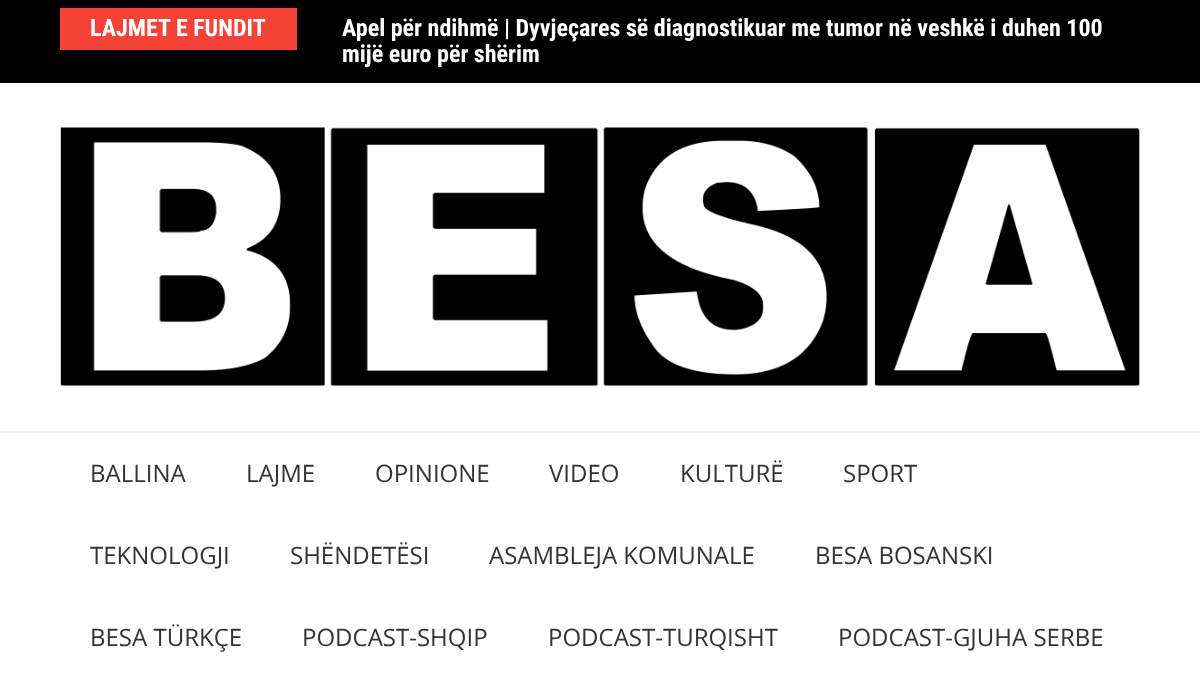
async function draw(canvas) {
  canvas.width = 1200
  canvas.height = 682
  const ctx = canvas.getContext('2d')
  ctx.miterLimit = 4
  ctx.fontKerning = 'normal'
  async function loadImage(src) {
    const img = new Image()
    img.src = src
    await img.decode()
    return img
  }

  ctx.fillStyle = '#fff'
  ctx.fillRect(0, 0, 1200, 682)
  ctx.fillStyle = '#000'
  ctx.fillRect(0, 0, 1200, 83)
  ctx.fillStyle = '#f44336'
  ctx.fillRect(60, 8, 237, 42)
  ctx.font = 'bold 24px Roboto Condensed'
  ctx.fillStyle = '#fff'
  ctx.fillText('LAJMET E FUNDIT', 90, 36)
  ctx.fillText('Apel për ndihmë | Dyvjeçares së diagnostikuar me tumor në veshkë i duhen 100', 342, 36)
  ctx.fillText('mijë euro për shërim', 342, 62)
  ctx.drawImage(await loadImage('image0.png'), 60, 127, 1080, 259)
  ctx.fillStyle = '#f2f2f2'
  ctx.fillRect(0, 431, 1200, 2)
  ctx.font = '24px Open Sans'
  ctx.fillStyle = '#333'
  ctx.fillText('BALLINA', 90, 482)
  ctx.fillText('LAJME', 246, 482)
  ctx.fillText('OPINIONE', 375, 482)
  ctx.fillText('VIDEO', 549, 482)
  ctx.fillText('KULTURË', 680, 482)
  ctx.fillText('SPORT', 843, 482)
  ctx.fillText('TEKNOLOGJI', 90, 564)
  ctx.fillText('SHËNDETËSI', 290, 564)
  ctx.fillText('ASAMBLEJA KOMUNALE', 489, 564)
  ctx.fillText('BESA BOSANSKI', 815, 564)
  ctx.fillText('BESA TÜRKÇE', 90, 646)
  ctx.fillText('PODCAST-SHQIP', 302, 646)
  ctx.fillText('PODCAST-TURQISHT', 548, 646)
  ctx.fillText('PODCAST-GJUHA SERBE', 838, 646)
}

draw(document.querySelector('canvas'))
